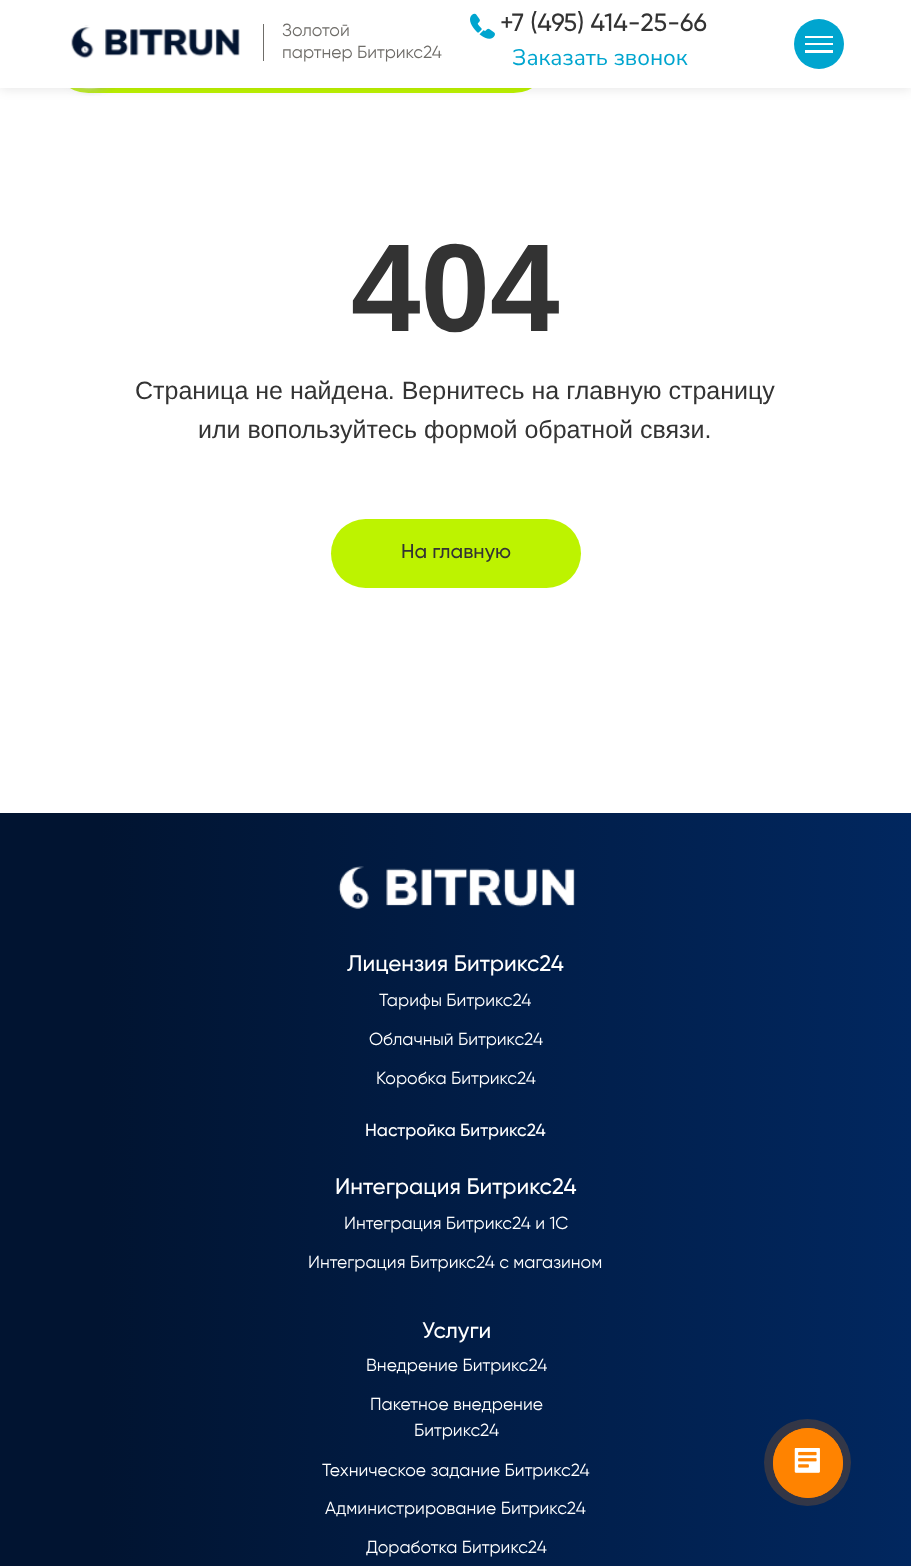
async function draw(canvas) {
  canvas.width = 911
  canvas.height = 1566
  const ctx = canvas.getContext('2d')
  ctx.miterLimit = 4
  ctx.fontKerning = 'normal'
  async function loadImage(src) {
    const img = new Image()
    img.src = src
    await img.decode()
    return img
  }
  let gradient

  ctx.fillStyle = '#fff'
  ctx.fillRect(0, 0, 911, 1566)
  ctx.fillStyle = '#bdf300'
  ctx.beginPath()
  ctx.roundRect(51, 18, 500, 75, 37.5)
  ctx.fill()
  ctx.drawImage(await loadImage('image2.png'), 62, 88, 53, 8)
  ctx.fillStyle = '#0000001a'
  ctx.filter = 'blur(6px)'
  ctx.beginPath()
  ctx.rect(0, 1, 911, 88)
  ctx.fill()
  ctx.filter = 'none'
  ctx.fillStyle = '#fff'
  ctx.fillRect(0, 0, 911, 88)
  ctx.drawImage(await loadImage('image0.png'), 71, 25, 169, 34)
  ctx.fillStyle = '#6f6d69'
  ctx.fillRect(263, 24, 1, 37)
  ctx.font = '17.5px Gilroy'
  ctx.fillText('Золотой', 282, 36)
  ctx.fillText('партнер Битрикс24', 282, 58)
  ctx.drawImage(await loadImage('image1.png'), 470, 13, 25, 26)
  ctx.font = '500 25px Gilroy'
  ctx.fillStyle = '#333'
  ctx.fillText('+7 (495) 414-25-66', 500, 31)
  ctx.fillStyle = '#00a5cf'
  ctx.beginPath()
  ctx.arc(819, 44, 25, 0, 2 * Math.PI)
  ctx.fill()
  ctx.fillStyle = '#fff'
  ctx.fillRect(805, 43, 28, 2)
  ctx.fillRect(805, 36, 28, 2)
  ctx.fillRect(805, 50, 28, 3)
  ctx.font = '22.5px Nunito Sans'
  ctx.fillStyle = '#00a5cf'
  ctx.fillText('Заказать звонок', 512, 65)
  ctx.font = 'bold 125px Liberation Sans'
  ctx.fillStyle = '#333'
  ctx.fillText('404', 351, 331)
  ctx.font = '25px Liberation Sans'
  ctx.fillText('Страница не найдена. Вернитесь на главную страницу', 135, 399)
  ctx.fillText('или вопользуйтесь формой обратной связи.', 198, 438)
  ctx.fillStyle = '#bdf300'
  ctx.beginPath()
  ctx.roundRect(331, 519, 250, 69, 34.5)
  ctx.fill()
  ctx.font = '500 20px Gilroy'
  ctx.fillStyle = '#333'
  ctx.fillText('На главную', 401, 558)
  gradient = ctx.createLinearGradient(0, 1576, 911, 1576)
  gradient.addColorStop(0.11, '#011431')
  gradient.addColorStop(1, '#01275f')
  ctx.fillStyle = gradient
  ctx.fillRect(0, 813, 911, 753)
  ctx.drawImage(await loadImage('image3.png'), 338, 866, 237, 43)
  ctx.font = '500 22.5px Gilroy'
  ctx.fillStyle = '#fff'
  ctx.fillText('Лицензия Битрикс24', 347, 971)
  ctx.font = '17.5px Gilroy'
  ctx.fillText('Тарифы Битрикс24', 379, 1006)
  ctx.fillText('Облачный Битрикс24', 369, 1045)
  ctx.fillText('Коробка Битрикс24', 376, 1084)
  ctx.font = '500 17.5px Gilroy'
  ctx.fillText('Настройка Битрикс24', 365, 1136)
  ctx.font = '500 22.5px Gilroy'
  ctx.fillText('Интеграция Битрикс24', 335, 1194)
  ctx.font = '17.5px Gilroy'
  ctx.fillText('Интеграция Битрикс24 и 1С', 344, 1229)
  ctx.fillText('Интеграция Битрикс24 с магазином', 308, 1268)
  ctx.font = '500 22.5px Gilroy'
  ctx.fillText('Услуги', 422, 1338)
  ctx.font = '17.5px Gilroy'
  ctx.fillText('Внедрение Битрикс24', 366, 1371)
  ctx.fillText('Пакетное внедрение', 370, 1410)
  ctx.fillText('Битрикс24', 414, 1436)
  ctx.fillText('Техническое задание Битрикс24', 322, 1476)
  ctx.fillText('Администрирование Битрикс24', 325, 1514)
  ctx.fillText('Доработка Битрикс24', 366, 1553)
  ctx.fillStyle = '#ff830033'
  ctx.beginPath()
  ctx.arc(807.5, 1462.5, 43.5, 0, 2 * Math.PI)
  ctx.fill()
  ctx.beginPath()
  ctx.arc(808, 1463, 34.5, 0, 2 * Math.PI)
  ctx.strokeStyle = '#ff8300'
  ctx.stroke()
  ctx.fillStyle = '#ff8300'
  ctx.beginPath()
  ctx.arc(808, 1463, 35, 0, 2 * Math.PI)
  ctx.fill()
  ctx.drawImage(await loadImage('image4.png'), 794, 1448, 26, 25)
}

draw(document.querySelector('canvas'))
